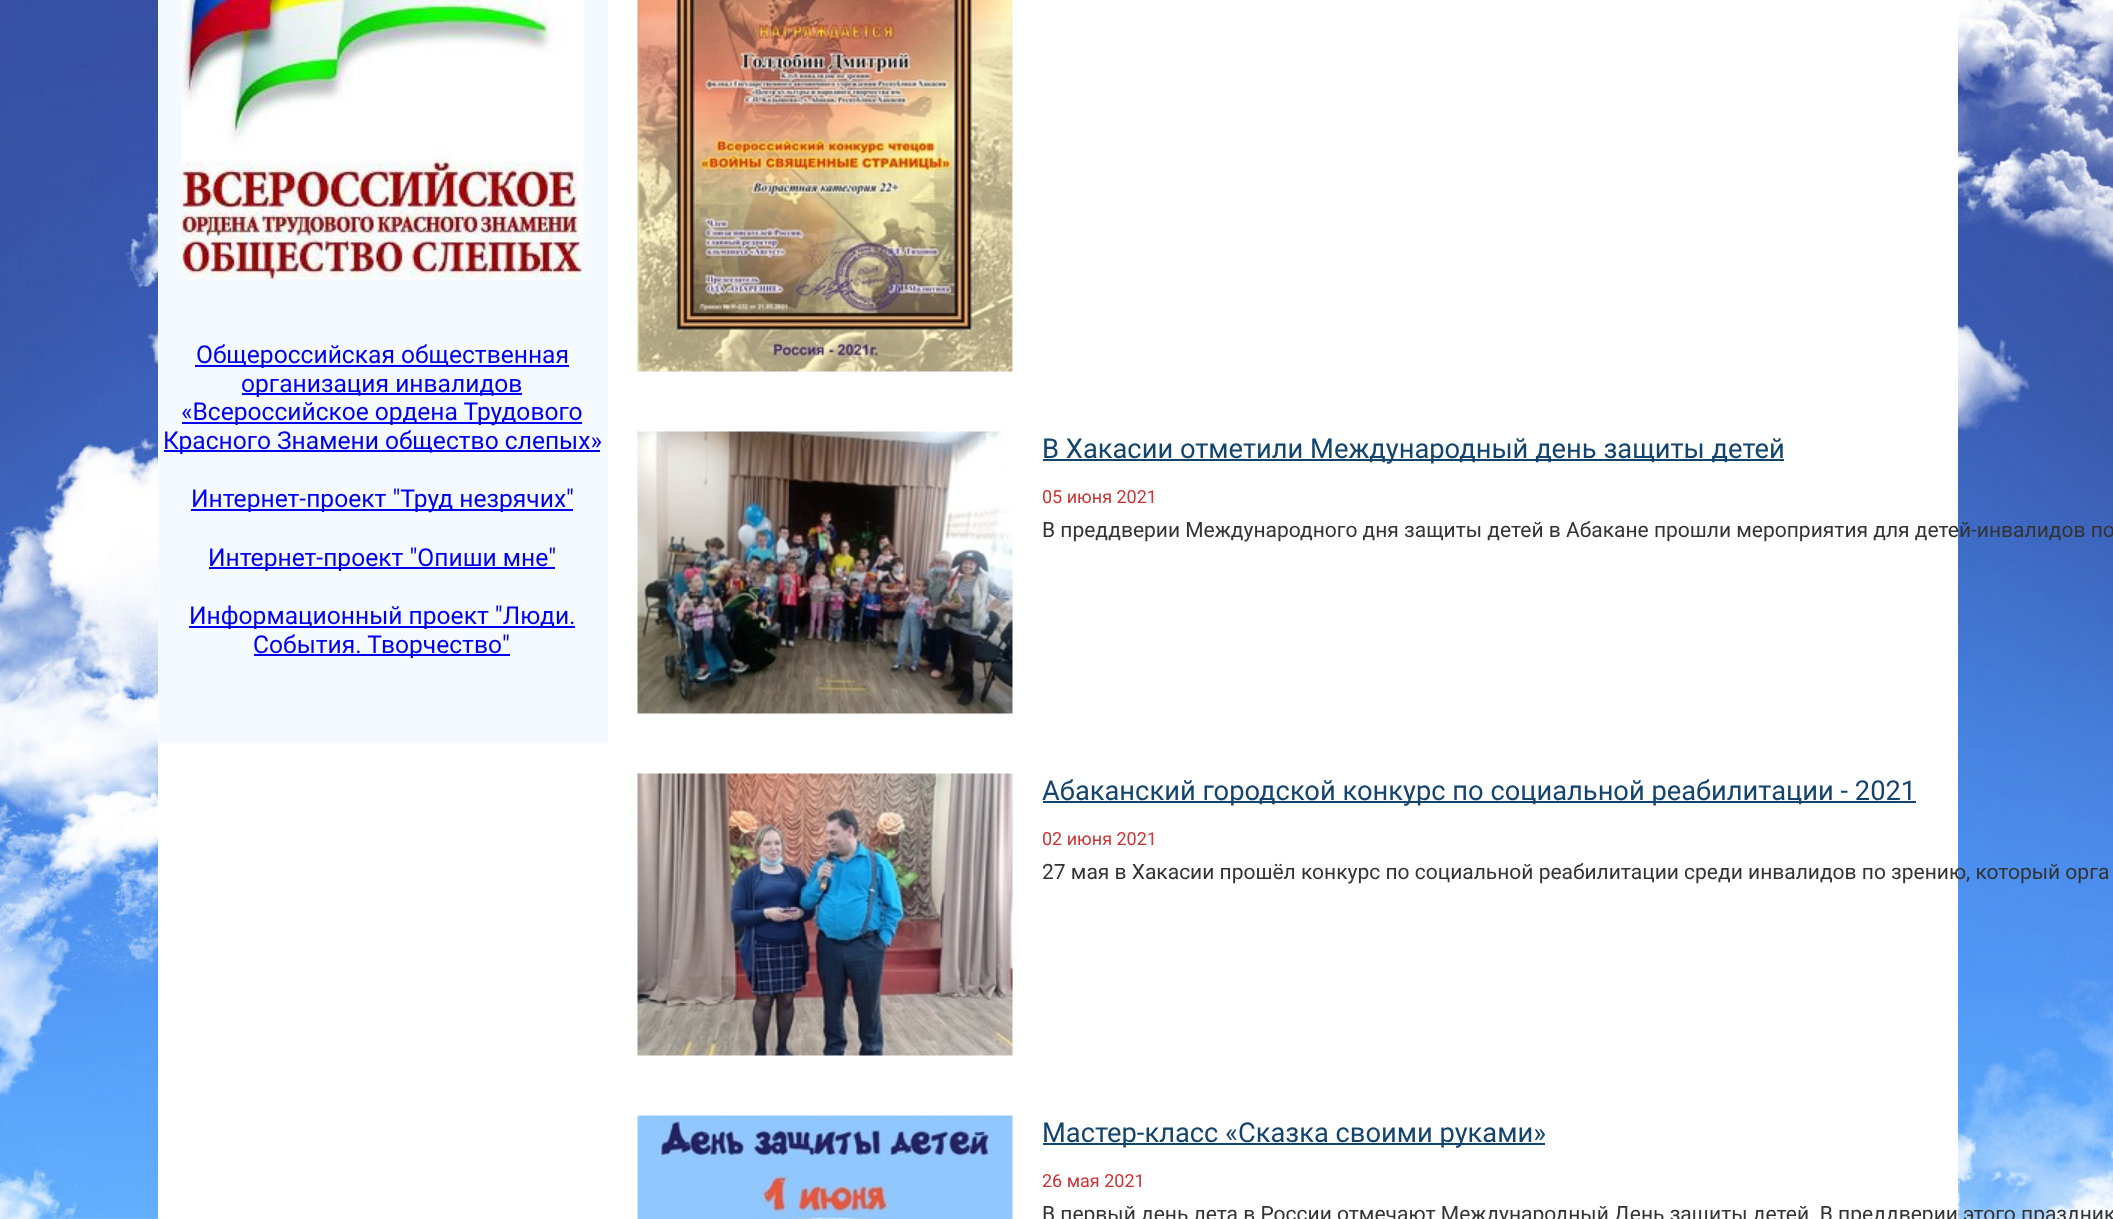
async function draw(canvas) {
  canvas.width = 2113
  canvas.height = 1219
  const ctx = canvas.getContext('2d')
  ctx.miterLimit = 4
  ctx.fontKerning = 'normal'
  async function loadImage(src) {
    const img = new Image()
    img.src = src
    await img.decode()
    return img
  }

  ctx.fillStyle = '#fff'
  ctx.fillRect(0, 0, 2113, 1219)
  ctx.drawImage(await loadImage('image0.png'), 0, 0, 2113, 1219)
  ctx.fillRect(158, 0, 1800, 1219)
  ctx.fillStyle = '#f4faff'
  ctx.fillRect(158, 0, 450, 743)
  ctx.drawImage(await loadImage('image1.png'), 181, 0, 403, 280)
  ctx.fillStyle = '#00e'
  ctx.fillRect(195, 365, 374, 2)
  ctx.font = '24.6px Roboto'
  ctx.fillText('Общероссийская общественная', 196, 363)
  ctx.fillRect(242, 393, 280, 2)
  ctx.fillText('организация инвалидов', 241, 392)
  ctx.fillRect(182, 422, 400, 2)
  ctx.fillText('«Всероссийское ордена Трудового', 181, 420)
  ctx.fillRect(164, 450, 436, 2)
  ctx.fillText('Красного Знамени общество слепых»', 163, 449)
  ctx.fillRect(191, 509, 382, 2)
  ctx.fillText('Интернет-проект "Труд незрячих"', 191, 507)
  ctx.fillRect(209, 567, 346, 2)
  ctx.fillText('Интернет-проект "Опиши мне"', 208, 566)
  ctx.fillRect(189, 626, 386, 2)
  ctx.fillText('Информационный проект "Люди.', 189, 624)
  ctx.fillRect(254, 654, 256, 2)
  ctx.fillText('События. Творчество"', 253, 653)
  ctx.drawImage(await loadImage('image2.png'), 637, 0, 376, 372)
  ctx.drawImage(await loadImage('image3.png'), 637, 431, 376, 283)
  ctx.fillStyle = '#13446e'
  ctx.fillRect(1043, 459, 741, 2)
  ctx.font = '27.3px Roboto'
  ctx.fillText('В Хакасии отметили Международный день защиты детей', 1042, 458)
  ctx.font = '18px Roboto'
  ctx.fillStyle = '#c33'
  ctx.fillText('05 июня 2021', 1042, 503)
  ctx.font = '21px Roboto'
  ctx.fillStyle = '#333'
  ctx.fillText('В преддверии Международного дня защиты детей в Абакане прошли мероприятия для детей-инвалидов по', 1042, 537)
  ctx.drawImage(await loadImage('image4.png'), 637, 773, 376, 283)
  ctx.fillStyle = '#13446e'
  ctx.fillRect(1043, 801, 873, 2)
  ctx.font = '27.3px Roboto'
  ctx.fillText('Абаканский городской конкурс по социальной реабилитации - 2021', 1042, 800)
  ctx.font = '18px Roboto'
  ctx.fillStyle = '#c33'
  ctx.fillText('02 июня 2021', 1042, 845)
  ctx.font = '21px Roboto'
  ctx.fillStyle = '#333'
  ctx.fillText('27 мая в Хакасии прошёл конкурс по социальной реабилитации среди инвалидов по зрению, который орга', 1042, 879)
  ctx.drawImage(await loadImage('image5.png'), 637, 1115, 376, 104)
  ctx.fillStyle = '#13446e'
  ctx.fillRect(1043, 1143, 502, 2)
  ctx.font = '27.3px Roboto'
  ctx.fillText('Мастер-класс «Сказка своими руками»', 1042, 1142)
  ctx.font = '18px Roboto'
  ctx.fillStyle = '#c33'
  ctx.fillText('26 мая 2021', 1042, 1187)
  ctx.font = '21px Roboto'
  ctx.fillStyle = '#333'
  ctx.fillText('В первый день лета в России отмечают Международный День защиты детей. В преддверии этого праздник', 1042, 1221)
}

draw(document.querySelector('canvas'))
